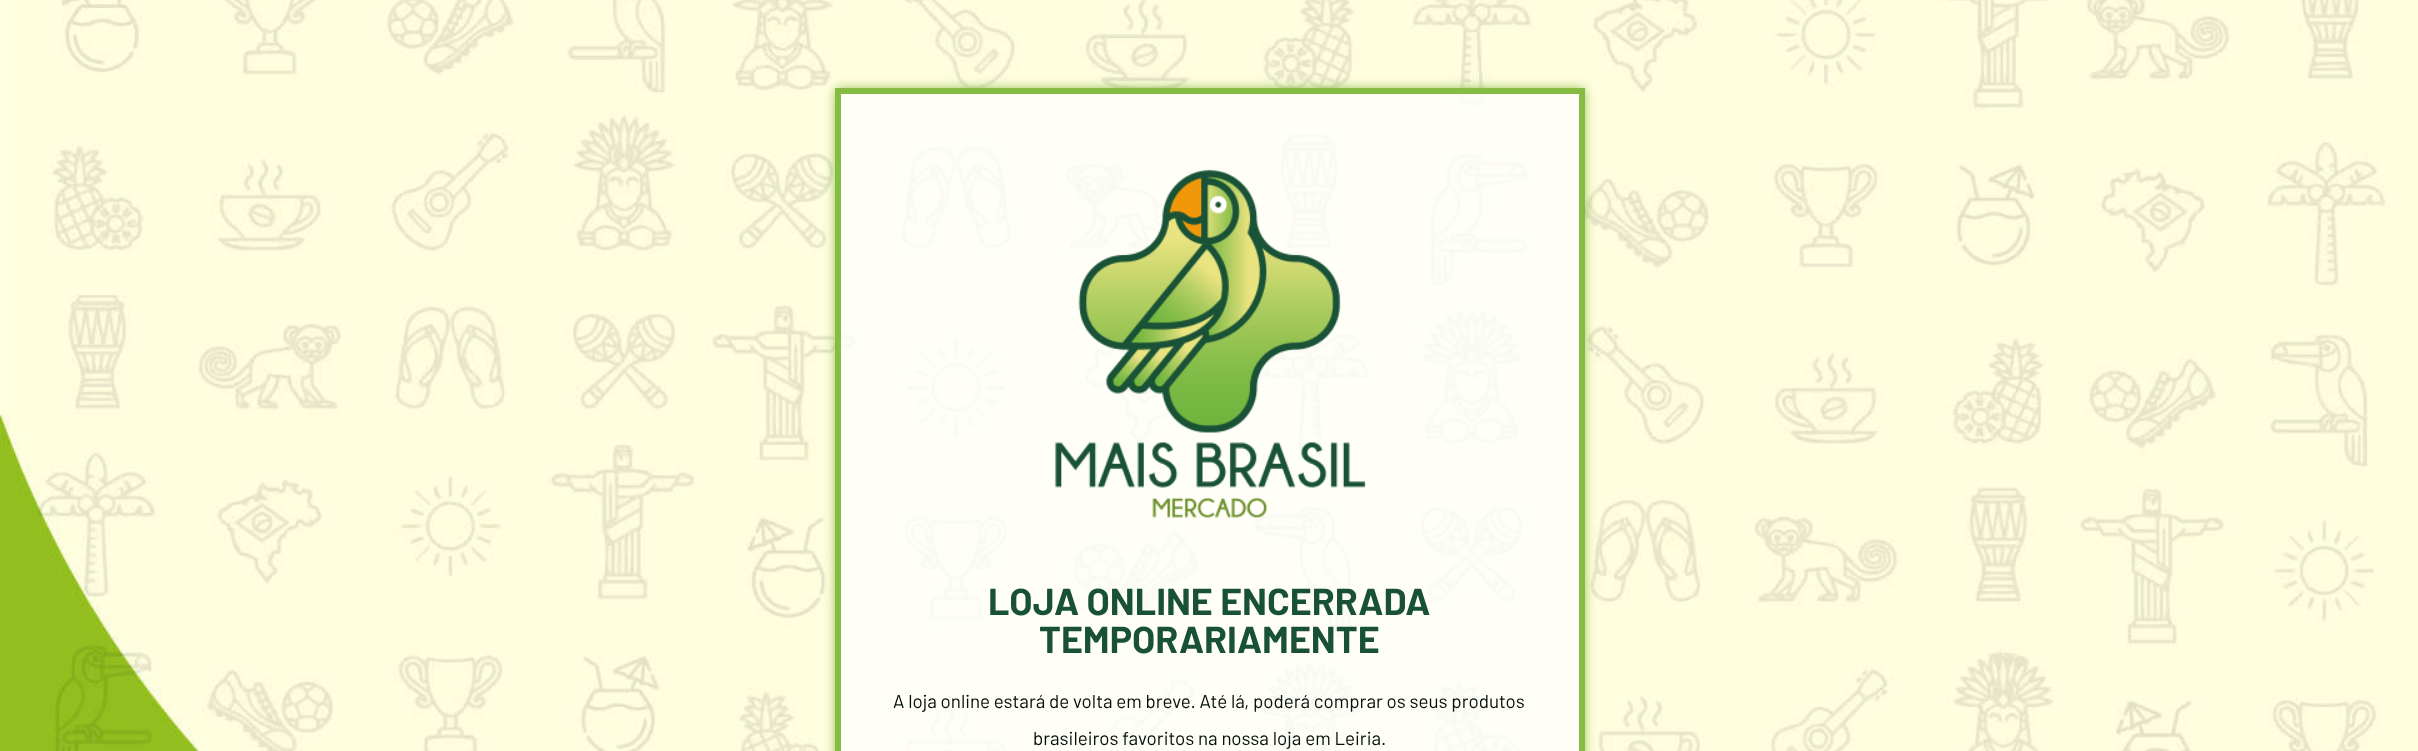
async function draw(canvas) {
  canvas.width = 2418
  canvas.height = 751
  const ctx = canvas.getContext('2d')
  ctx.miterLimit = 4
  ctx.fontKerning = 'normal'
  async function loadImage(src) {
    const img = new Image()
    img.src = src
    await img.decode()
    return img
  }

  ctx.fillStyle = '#fff'
  ctx.fillRect(0, 0, 2418, 751)
  ctx.drawImage(await loadImage('image0.png'), 0, 0, 2418, 751)
  ctx.save()
  ctx.beginPath()
  ctx.moveTo(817, 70)
  ctx.lineTo(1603, 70)
  ctx.lineTo(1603, 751)
  ctx.lineTo(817, 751)
  ctx.closePath()
  ctx.moveTo(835, 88)
  ctx.lineTo(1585, 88)
  ctx.lineTo(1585, 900)
  ctx.lineTo(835, 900)
  ctx.closePath()
  ctx.clip('evenodd')
  ctx.fillStyle = '#86bc42'
  ctx.filter = 'blur(6px)'
  ctx.beginPath()
  ctx.rect(836, 89, 748, 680)
  ctx.fill()
  ctx.filter = 'none'
  ctx.restore()
  ctx.fillStyle = '#ffffffc9'
  ctx.beginPath()
  ctx.rect(838, 91, 744, 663)
  ctx.fill()
  ctx.strokeStyle = '#86bc42'
  ctx.lineWidth = 6
  ctx.stroke()
  ctx.drawImage(await loadImage('image1.png'), 1054, 169, 312, 349)
  ctx.font = 'bold 37.5px Barlow'
  ctx.fillStyle = '#195136'
  ctx.fillText('LOJA ONLINE ENCERRADA', 988, 615)
  ctx.fillText('TEMPORARIAMENTE', 1039, 653)
  ctx.font = '18.75px Barlow'
  ctx.fillStyle = '#05100a'
  ctx.fillText('A loja online estará de volta em breve. Até lá, poderá comprar os seus produtos', 893, 708)
  ctx.fillText('brasileiros favoritos na nossa loja em Leiria.', 1033, 745)
}

draw(document.querySelector('canvas'))
